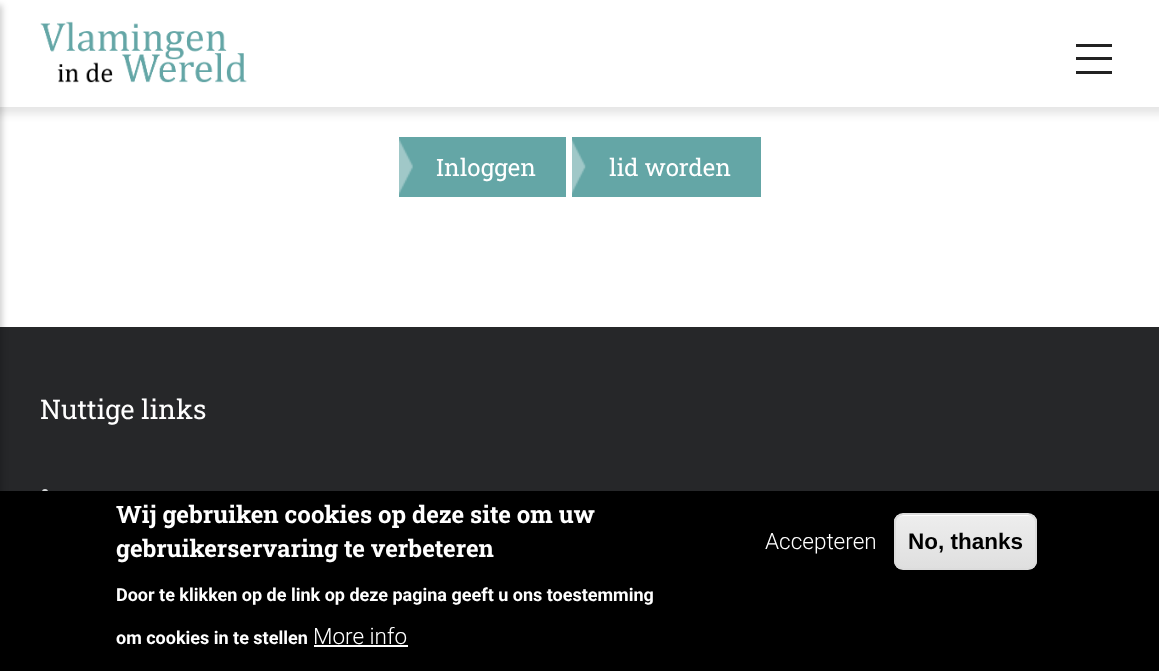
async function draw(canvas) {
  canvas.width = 1159
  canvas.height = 671
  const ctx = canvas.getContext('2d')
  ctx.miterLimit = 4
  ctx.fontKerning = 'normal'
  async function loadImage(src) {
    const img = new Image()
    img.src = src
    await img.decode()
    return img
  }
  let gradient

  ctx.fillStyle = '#fff'
  ctx.fillRect(0, 0, 1159, 671)
  ctx.fillStyle = '#0000001a'
  ctx.filter = 'blur(4px)'
  ctx.beginPath()
  ctx.rect(-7, -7, 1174, 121)
  ctx.fill()
  ctx.filter = 'none'
  ctx.fillStyle = '#fff'
  ctx.fillRect(0, 0, 1159, 107)
  ctx.fillStyle = '#262729'
  ctx.fillRect(0, 327, 1159, 164)
  ctx.fillStyle = '#00000033'
  ctx.filter = 'blur(3px)'
  ctx.beginPath()
  ctx.rect(-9, 5, 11, 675)
  ctx.fill()
  ctx.filter = 'none'
  ctx.fillStyle = '#222'
  ctx.fillRect(1076, 44, 36, 3)
  ctx.fillRect(1076, 57, 36, 3)
  ctx.fillRect(1076, 71, 36, 3)
  ctx.drawImage(await loadImage('image0.png'), 40, 21, 207, 62)
  ctx.fillStyle = '#64a6a6'
  ctx.fillRect(399, 137, 167, 60)
  ctx.drawImage(await loadImage('image1.png'), 399, 138, 14, 57)
  ctx.font = '24px Roboto Slab'
  ctx.fillStyle = '#fff'
  ctx.fillText('Inloggen', 436, 176)
  ctx.fillStyle = '#64a6a6'
  ctx.fillRect(572, 137, 189, 60)
  ctx.drawImage(await loadImage('image2.png'), 572, 139, 14, 55)
  ctx.fillStyle = '#fff'
  ctx.fillText('lid worden', 609, 176)
  ctx.font = '27px Roboto Slab'
  ctx.fillText('Nuttige links', 40, 419)
  ctx.fillStyle = '#d5d7d8'
  ctx.beginPath()
  ctx.arc(45, 492, 3, 0, 2 * Math.PI)
  ctx.fill()
  ctx.fillStyle = '#000'
  ctx.fillRect(0, 491, 1159, 180)
  ctx.font = 'bold 24px Roboto Slab'
  ctx.fillStyle = '#fff'
  ctx.fillText('Wij gebruiken cookies op deze site om uw', 116, 523)
  ctx.fillText('gebruikerservaring te verbeteren', 116, 557)
  ctx.font = 'bold 18px Roboto'
  ctx.fillText('Door te klikken op de link op deze pagina geeft u ons toestemming', 116, 601)
  ctx.fillText('om cookies in te stellen', 116, 644)
  ctx.font = '300 22.5px Roboto'
  ctx.fillText('More info', 313, 644)
  ctx.fillRect(314, 645, 94, 2)
  ctx.fillText('Accepteren', 765, 549)
  ctx.save()
  ctx.beginPath()
  ctx.roundRect(894, 513, 143, 57, 9)
  ctx.clip()
  gradient = ctx.createLinearGradient(965, 515, 965, 569)
  gradient.addColorStop(0.05, '#ededed')
  gradient.addColorStop(1, '#dfdfdf')
  ctx.fillStyle = gradient
  ctx.fillRect(894, 515, 143, 54)
  ctx.restore()
  ctx.beginPath()
  ctx.moveTo(903, 516)
  ctx.lineTo(1028, 516)
  ctx.bezierCurveTo(1032, 516, 1035, 519, 1035, 524)
  ctx.bezierCurveTo(1035, 510, 1014, 515, 1006, 515)
  ctx.lineTo(924, 515)
  ctx.bezierCurveTo(917, 515, 896, 510, 896, 524)
  ctx.bezierCurveTo(896, 519, 899, 516, 903, 516)
  ctx.closePath()
  ctx.fill()
  ctx.beginPath()
  ctx.roundRect(895, 514, 141, 55, 8)
  ctx.strokeStyle = '#dcdcdc'
  ctx.lineWidth = 2
  ctx.stroke()
  ctx.font = 'bold 22.5px Liberation Sans'
  ctx.fillStyle = '#000'
  ctx.fillText('No, thanks', 908, 549)
}

draw(document.querySelector('canvas'))
